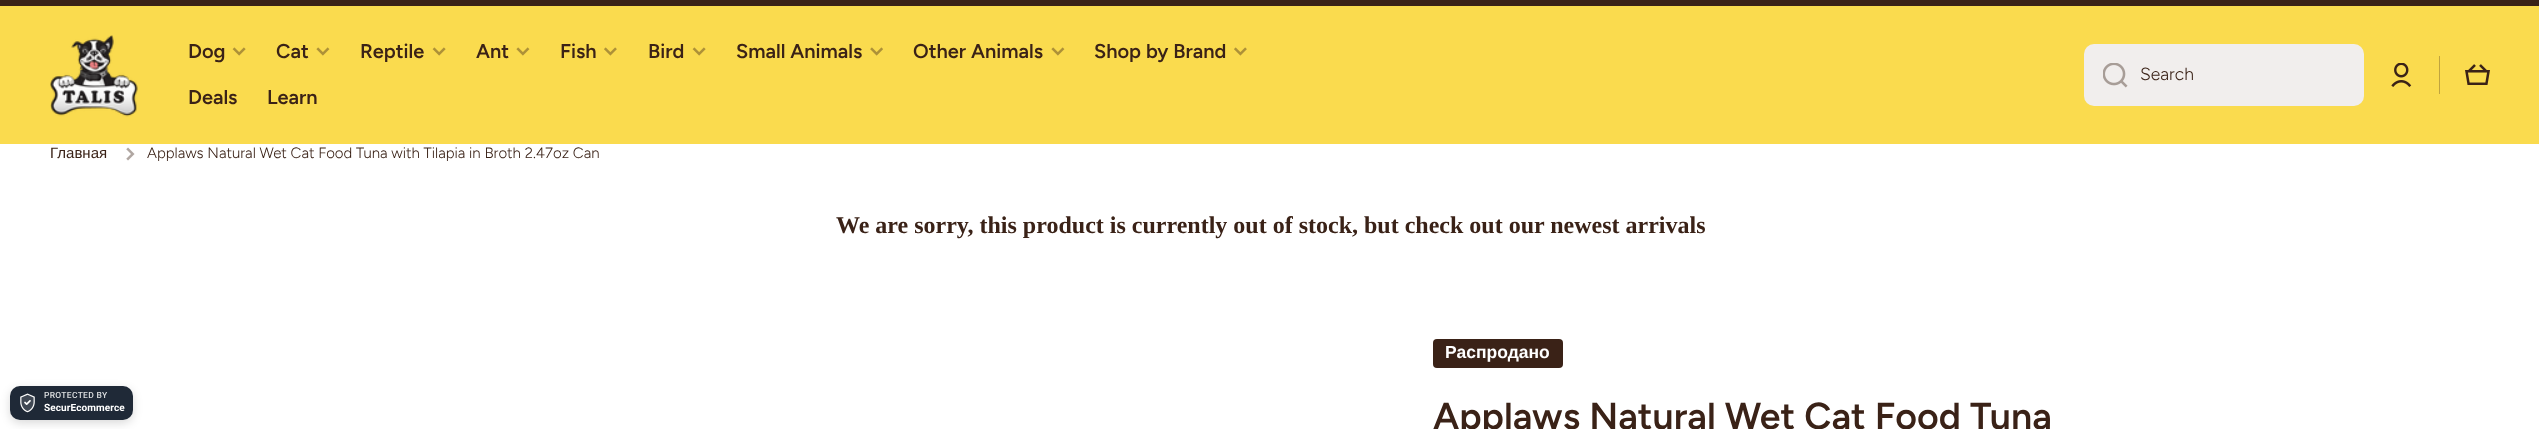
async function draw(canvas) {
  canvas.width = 2539
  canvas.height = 429
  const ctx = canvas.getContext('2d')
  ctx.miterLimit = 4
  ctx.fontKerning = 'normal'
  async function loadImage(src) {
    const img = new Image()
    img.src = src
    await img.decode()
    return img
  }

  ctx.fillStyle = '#fff'
  ctx.fillRect(0, 0, 2539, 429)
  ctx.fillStyle = '#3a2217'
  ctx.fillRect(0, 0, 2539, 6)
  ctx.fillStyle = '#fadb4e'
  ctx.fillRect(0, 6, 2539, 138)
  ctx.drawImage(await loadImage('image0.png'), 50, 35, 88, 82)
  ctx.font = '600 20px Figtree'
  ctx.fillStyle = '#3a2217'
  ctx.fillText('Dog', 188, 58)
  ctx.drawImage(await loadImage('image1.png'), 232, 47, 14, 9)
  ctx.fillText('Cat', 276, 58)
  ctx.drawImage(await loadImage('image2.png'), 316, 47, 14, 9)
  ctx.fillText('Reptile', 360, 58)
  ctx.drawImage(await loadImage('image1.png'), 432, 47, 14, 9)
  ctx.fillText('Ant', 476, 58)
  ctx.drawImage(await loadImage('image2.png'), 516, 47, 14, 9)
  ctx.fillText('Fish', 560, 58)
  ctx.drawImage(await loadImage('image3.png'), 604, 47, 13, 9)
  ctx.fillText('Bird', 648, 58)
  ctx.drawImage(await loadImage('image1.png'), 692, 47, 14, 9)
  ctx.fillText('Small Animals', 736, 58)
  ctx.drawImage(await loadImage('image4.png'), 870, 47, 13, 9)
  ctx.fillText('Other Animals', 913, 58)
  ctx.drawImage(await loadImage('image2.png'), 1051, 47, 14, 9)
  ctx.fillText('Shop by Brand', 1094, 58)
  ctx.drawImage(await loadImage('image3.png'), 1234, 47, 13, 9)
  ctx.fillText('Deals', 188, 104)
  ctx.fillText('Learn', 267, 104)
  ctx.fillStyle = '#f1eeed'
  ctx.beginPath()
  ctx.roundRect(2084, 44, 280, 62, 10)
  ctx.fill()
  ctx.drawImage(await loadImage('image5.png'), 2103, 63, 25, 25)
  ctx.font = '300 17.5px Figtree'
  ctx.fillStyle = '#3a2217'
  ctx.fillText('Search', 2140, 80)
  ctx.drawImage(await loadImage('image6.png'), 2391, 63, 21, 24)
  ctx.fillStyle = '#c0a43e'
  ctx.fillRect(2439, 56, 1, 38)
  ctx.drawImage(await loadImage('image7.png'), 2465, 64, 25, 21)
  ctx.font = '15px Liberation Sans'
  ctx.fillStyle = '#3a2217'
  ctx.fillText('Главная', 50, 158)
  ctx.drawImage(await loadImage('image8.png'), 126, 147, 9, 14)
  ctx.font = '300 15px Figtree'
  ctx.fillText('Applaws Natural Wet Cat Food Tuna with Tilapia in Broth 2.47oz Can', 147, 158)
  ctx.font = 'bold 24px Liberation Serif'
  ctx.fillText('We are sorry, this product is currently out of stock, but check out our newest arrivals', 836, 233)
  ctx.beginPath()
  ctx.roundRect(1433, 339, 130, 29, 4)
  ctx.fill()
  ctx.font = 'bold 17.5px Liberation Sans'
  ctx.fillStyle = '#fff'
  ctx.fillText('Распродано', 1445, 358)
  ctx.font = '600 37.5px Figtree'
  ctx.fillStyle = '#3a2217'
  ctx.fillText('Applaws Natural Wet Cat Food Tuna', 1433, 429)
  ctx.fillStyle = '#00000026'
  ctx.filter = 'blur(5px)'
  ctx.beginPath()
  ctx.roundRect(10, 389, 123, 34, 10)
  ctx.fill()
  ctx.filter = 'none'
  ctx.fillStyle = '#1f2937'
  ctx.beginPath()
  ctx.roundRect(10, 386, 123, 34, 10)
  ctx.fill()
  ctx.drawImage(await loadImage('image9.png'), 20, 393, 15, 20)
  ctx.letterSpacing = '0.3px'
  ctx.font = '500 8.5px Roboto'
  ctx.fillStyle = '#dddfe1'
  ctx.fillText('PROTECTED BY', 44, 398)
  ctx.letterSpacing = '0.1px'
  ctx.font = 'bold 10px Roboto'
  ctx.fillStyle = '#fff'
  ctx.fillText('SecurEcommerce', 44, 411)
}

draw(document.querySelector('canvas'))
